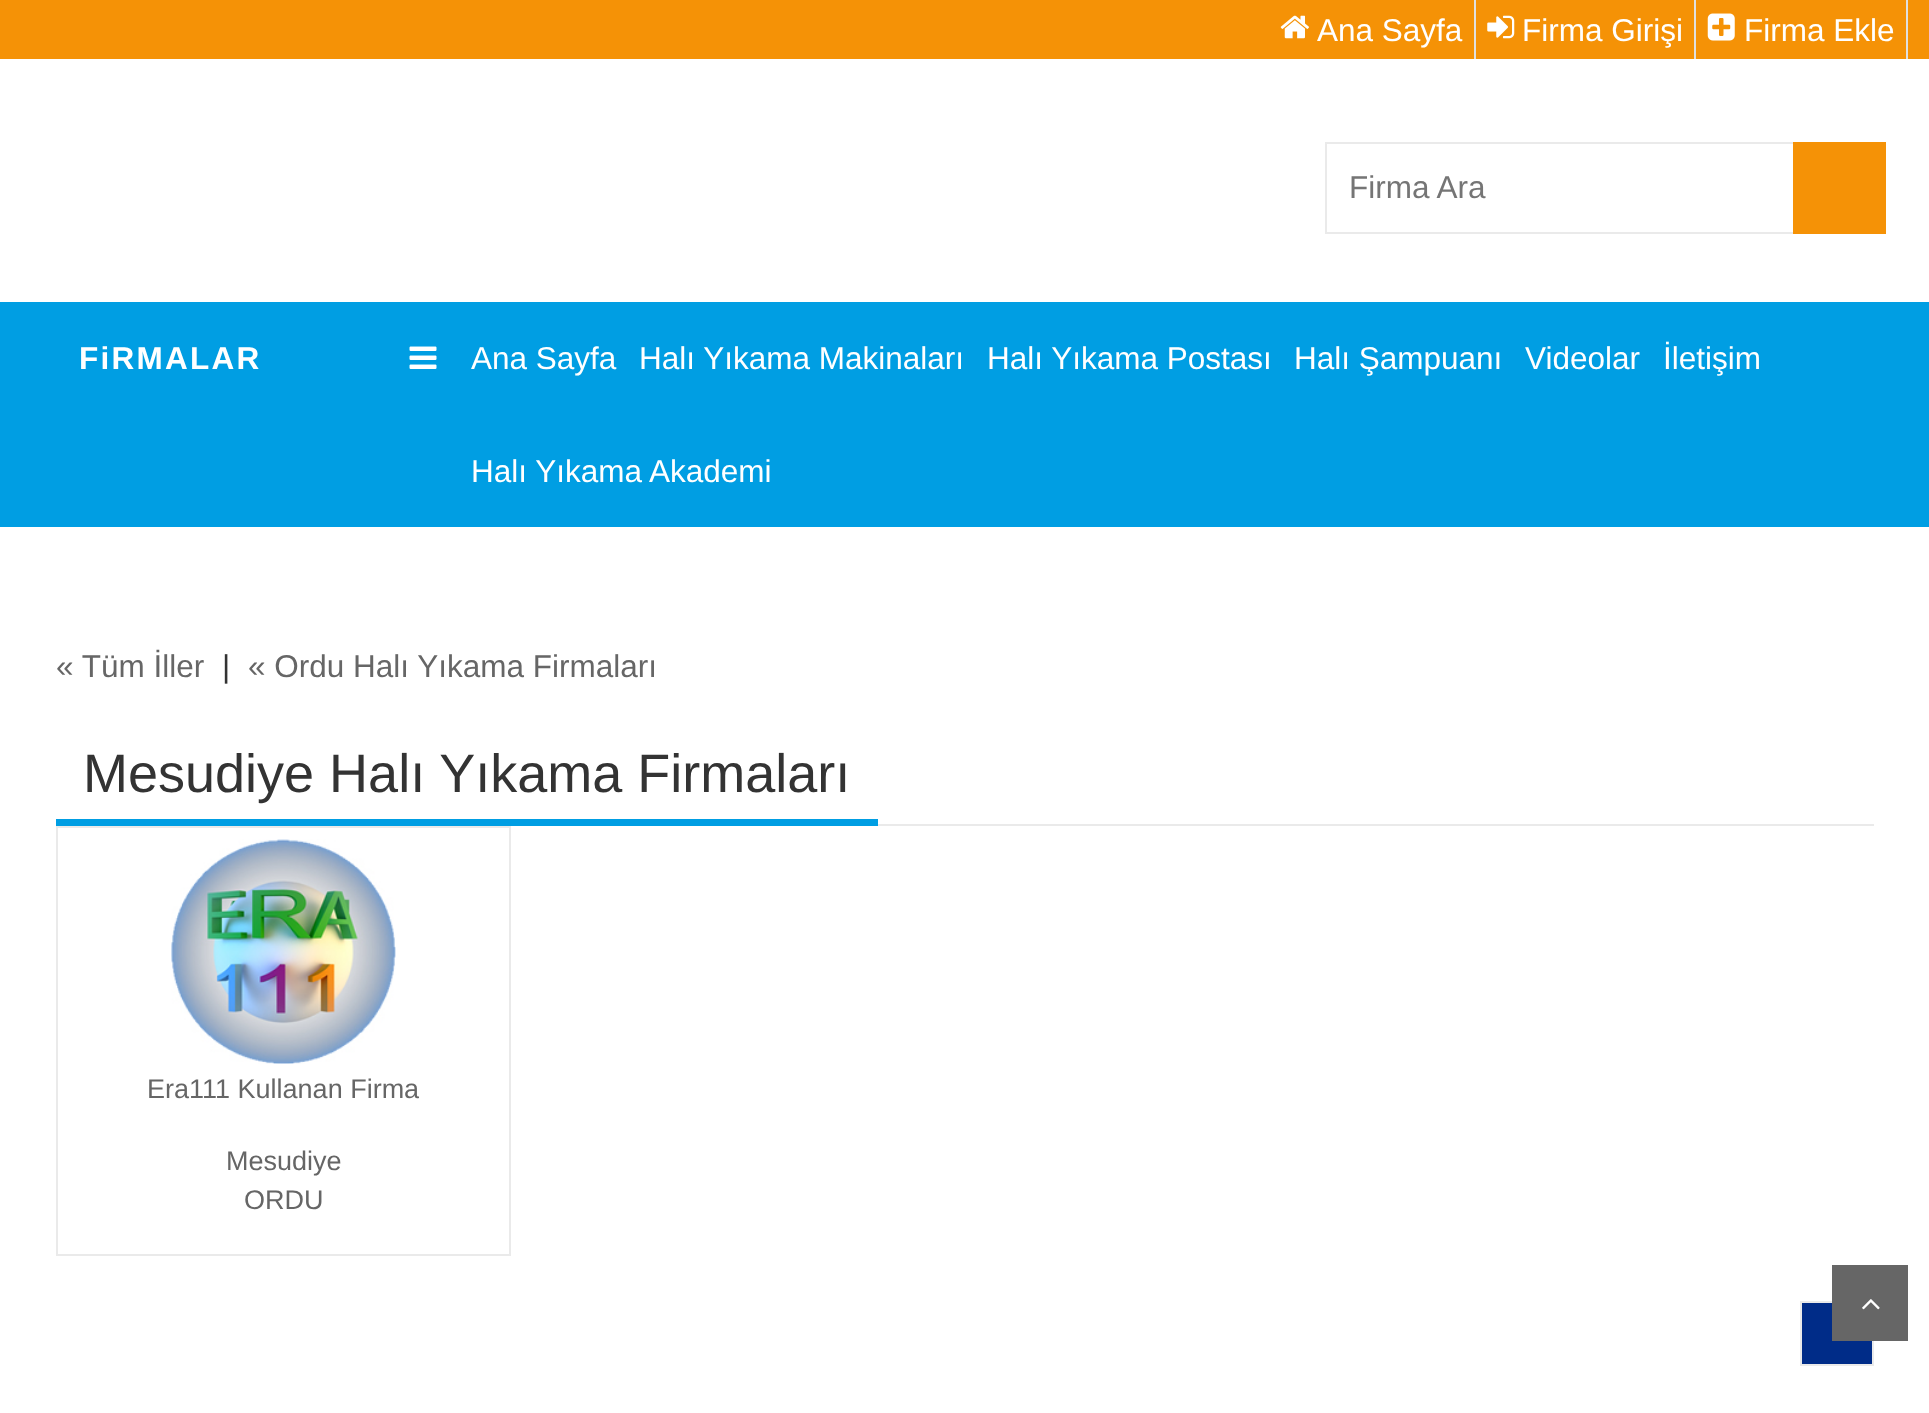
async function draw(canvas) {
  canvas.width = 1929
  canvas.height = 1413
  const ctx = canvas.getContext('2d')
  ctx.miterLimit = 4
  ctx.fontKerning = 'normal'
  async function loadImage(src) {
    const img = new Image()
    img.src = src
    await img.decode()
    return img
  }

  ctx.fillStyle = '#fff'
  ctx.fillRect(0, 0, 1929, 1413)
  ctx.fillStyle = '#f59206'
  ctx.fillRect(0, 0, 1929, 59)
  ctx.fillStyle = '#e0e0e0'
  ctx.fillRect(1474, 0, 2, 59)
  ctx.drawImage(await loadImage('image0.png'), 1280, 15, 29, 24)
  ctx.font = '31.5px Liberation Sans'
  ctx.fillStyle = '#fff'
  ctx.fillText('Ana Sayfa', 1317, 41)
  ctx.fillStyle = '#e0e0e0'
  ctx.fillRect(1694, 0, 2, 59)
  ctx.drawImage(await loadImage('image1.png'), 1487, 15, 28, 24)
  ctx.fillStyle = '#fff'
  ctx.fillText('Firma Girişi', 1522, 41)
  ctx.fillStyle = '#e0e0e0'
  ctx.fillRect(1906, 0, 2, 59)
  ctx.drawImage(await loadImage('image2.png'), 1707, 13, 28, 28)
  ctx.fillStyle = '#fff'
  ctx.fillText('Firma Ekle', 1744, 41)
  ctx.strokeStyle = '#eaeaea'
  ctx.lineWidth = 2
  ctx.strokeRect(1326, 143, 559, 90)
  ctx.fillStyle = '#757575'
  ctx.fillText('Firma Ara', 1349, 198)
  ctx.fillStyle = '#f59206'
  ctx.fillRect(1793, 142, 93, 92)
  ctx.fillStyle = '#009ee3'
  ctx.fillRect(0, 302, 1929, 225)
  ctx.letterSpacing = '2.25px'
  ctx.font = 'bold 31.5px Liberation Sans'
  ctx.fillStyle = '#fff'
  ctx.fillText('FiRMALAR', 79, 369)
  ctx.drawImage(await loadImage('image3.png'), 409, 346, 28, 23)
  ctx.letterSpacing = '0px'
  ctx.font = '31.5px Liberation Sans'
  ctx.fillText('Ana Sayfa', 471, 369)
  ctx.fillText('Halı Yıkama Makinaları', 639, 369)
  ctx.fillText('Halı Yıkama Postası', 987, 369)
  ctx.fillText('Halı Şampuanı', 1294, 369)
  ctx.fillText('Videolar', 1525, 369)
  ctx.fillText('İletişim', 1663, 369)
  ctx.fillText('Halı Yıkama Akademi', 471, 482)
  ctx.fillStyle = '#666'
  ctx.fillText('« Tüm İller', 56, 677)
  ctx.fillStyle = '#333'
  ctx.fillText('|', 222, 677)
  ctx.fillStyle = '#666'
  ctx.fillText('« Ordu Halı Yıkama Firmaları', 248, 677)
  ctx.fillStyle = '#eaeaea'
  ctx.fillRect(878, 824, 996, 2)
  ctx.fillStyle = '#009ee3'
  ctx.fillRect(56, 819, 822, 7)
  ctx.font = '54px Liberation Sans'
  ctx.fillStyle = '#333'
  ctx.fillText('Mesudiye Halı Yıkama Firmaları', 83, 792)
  ctx.strokeRect(57, 827, 453, 428)
  ctx.drawImage(await loadImage('image4.png'), 171, 839, 225, 225)
  ctx.font = '27px Liberation Sans'
  ctx.fillStyle = '#666'
  ctx.fillText('Era111 Kullanan Firma', 147, 1098)
  ctx.fillText('Mesudiye', 226, 1170)
  ctx.fillText('ORDU', 244, 1209)
  ctx.fillStyle = '#002c88'
  ctx.beginPath()
  ctx.rect(1801, 1302, 72, 63)
  ctx.fill()
  ctx.stroke()
  ctx.fillStyle = '#666'
  ctx.fillRect(1832, 1265, 76, 76)
  ctx.drawImage(await loadImage('image5.png'), 1862, 1299, 18, 11)
}

draw(document.querySelector('canvas'))
